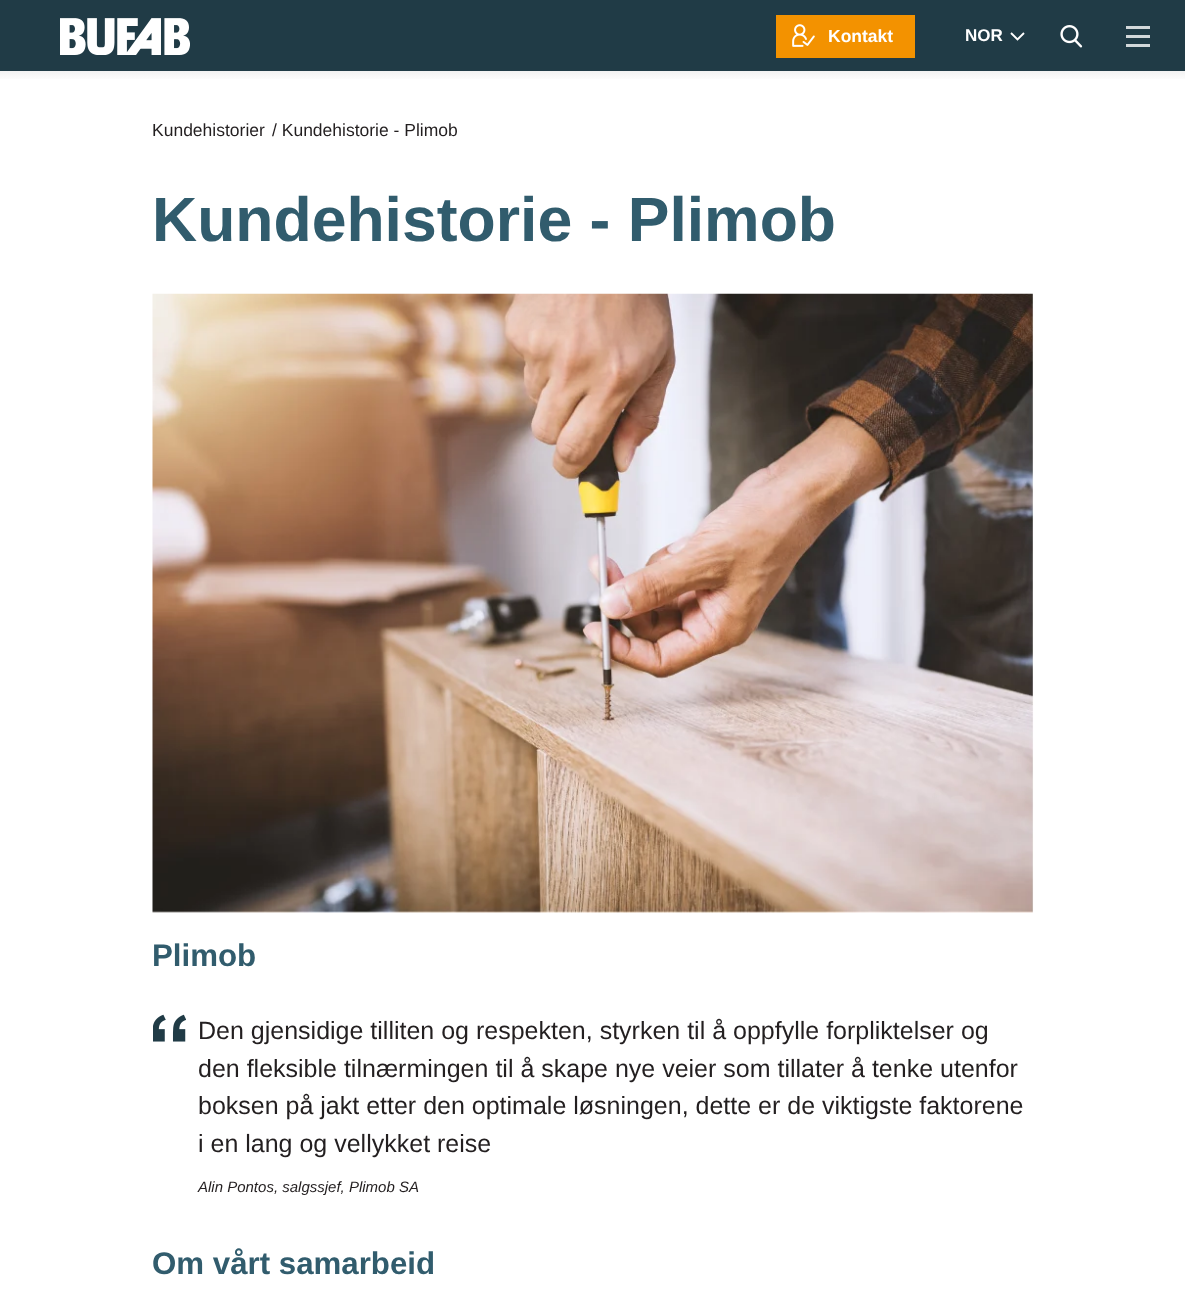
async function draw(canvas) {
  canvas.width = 1185
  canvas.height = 1314
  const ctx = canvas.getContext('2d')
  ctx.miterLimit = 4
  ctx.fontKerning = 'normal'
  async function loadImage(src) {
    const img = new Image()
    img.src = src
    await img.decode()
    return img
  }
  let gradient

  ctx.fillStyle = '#fff'
  ctx.fillRect(0, 0, 1185, 1314)
  ctx.fillStyle = '#203b46'
  ctx.fillRect(0, 0, 1185, 71)
  ctx.drawImage(await loadImage('image0.png'), 60, 18, 130, 37)
  ctx.fillStyle = '#f39200'
  ctx.fillRect(776, 15, 139, 43)
  ctx.drawImage(await loadImage('image1.png'), 792, 24, 23, 23)
  ctx.font = 'bold 17.5px Liberation Sans'
  ctx.fillStyle = '#fff'
  ctx.fillText('Kontakt', 828, 42)
  ctx.font = 'bold 17px Liberation Sans'
  ctx.fillText('NOR', 965, 41)
  ctx.beginPath()
  ctx.moveTo(1011, 33)
  ctx.lineTo(1017.5, 39.5)
  ctx.lineTo(1024, 33)
  ctx.strokeStyle = '#fff'
  ctx.lineWidth = 1.9
  ctx.stroke()
  ctx.drawImage(await loadImage('image2.png'), 1060, 25, 23, 23)
  ctx.fillStyle = '#d2d8da'
  ctx.fillRect(1126, 26, 24, 3)
  ctx.fillRect(1126, 35, 24, 3)
  ctx.fillRect(1126, 44, 24, 3)
  gradient = ctx.createLinearGradient(593, 71, 593, 81)
  gradient.addColorStop(0, '#f2f2f2')
  gradient.addColorStop(1, '#fff')
  ctx.fillStyle = gradient
  ctx.fillRect(0, 71, 1185, 8)
  ctx.font = '17.5px Liberation Sans'
  ctx.fillStyle = '#231f20'
  ctx.fillText('Kundehistorier', 152, 136)
  ctx.fillText('/ Kundehistorie - Plimob', 272, 136)
  ctx.font = 'bold 62.5px Liberation Sans'
  ctx.fillStyle = '#315c6d'
  ctx.fillText('Kundehistorie - Plimob', 152, 241)
  ctx.drawImage(await loadImage('image3.png'), 152, 293, 882, 620)
  ctx.font = 'bold 31.25px Liberation Sans'
  ctx.fillText('Plimob', 152, 966)
  ctx.drawImage(await loadImage('image4.png'), 153, 1014, 33, 28)
  ctx.font = '25px Liberation Sans'
  ctx.fillStyle = '#231f20'
  ctx.fillText('Den gjensidige tilliten og respekten, styrken til å oppfylle forpliktelser og', 198, 1039)
  ctx.fillText('den fleksible tilnærmingen til å skape nye veier som tillater å tenke utenfor', 198, 1077)
  ctx.fillText('boksen på jakt etter den optimale løsningen, dette er de viktigste faktorene', 198, 1114)
  ctx.fillText('i en lang og vellykket reise', 198, 1152)
  ctx.font = 'italic 15px Liberation Sans'
  ctx.fillText('Alin Pontos, salgssjef, Plimob SA', 198, 1192)
  ctx.font = 'bold 31.25px Liberation Sans'
  ctx.fillStyle = '#315c6d'
  ctx.fillText('Om vårt samarbeid', 152, 1274)
}

draw(document.querySelector('canvas'))
